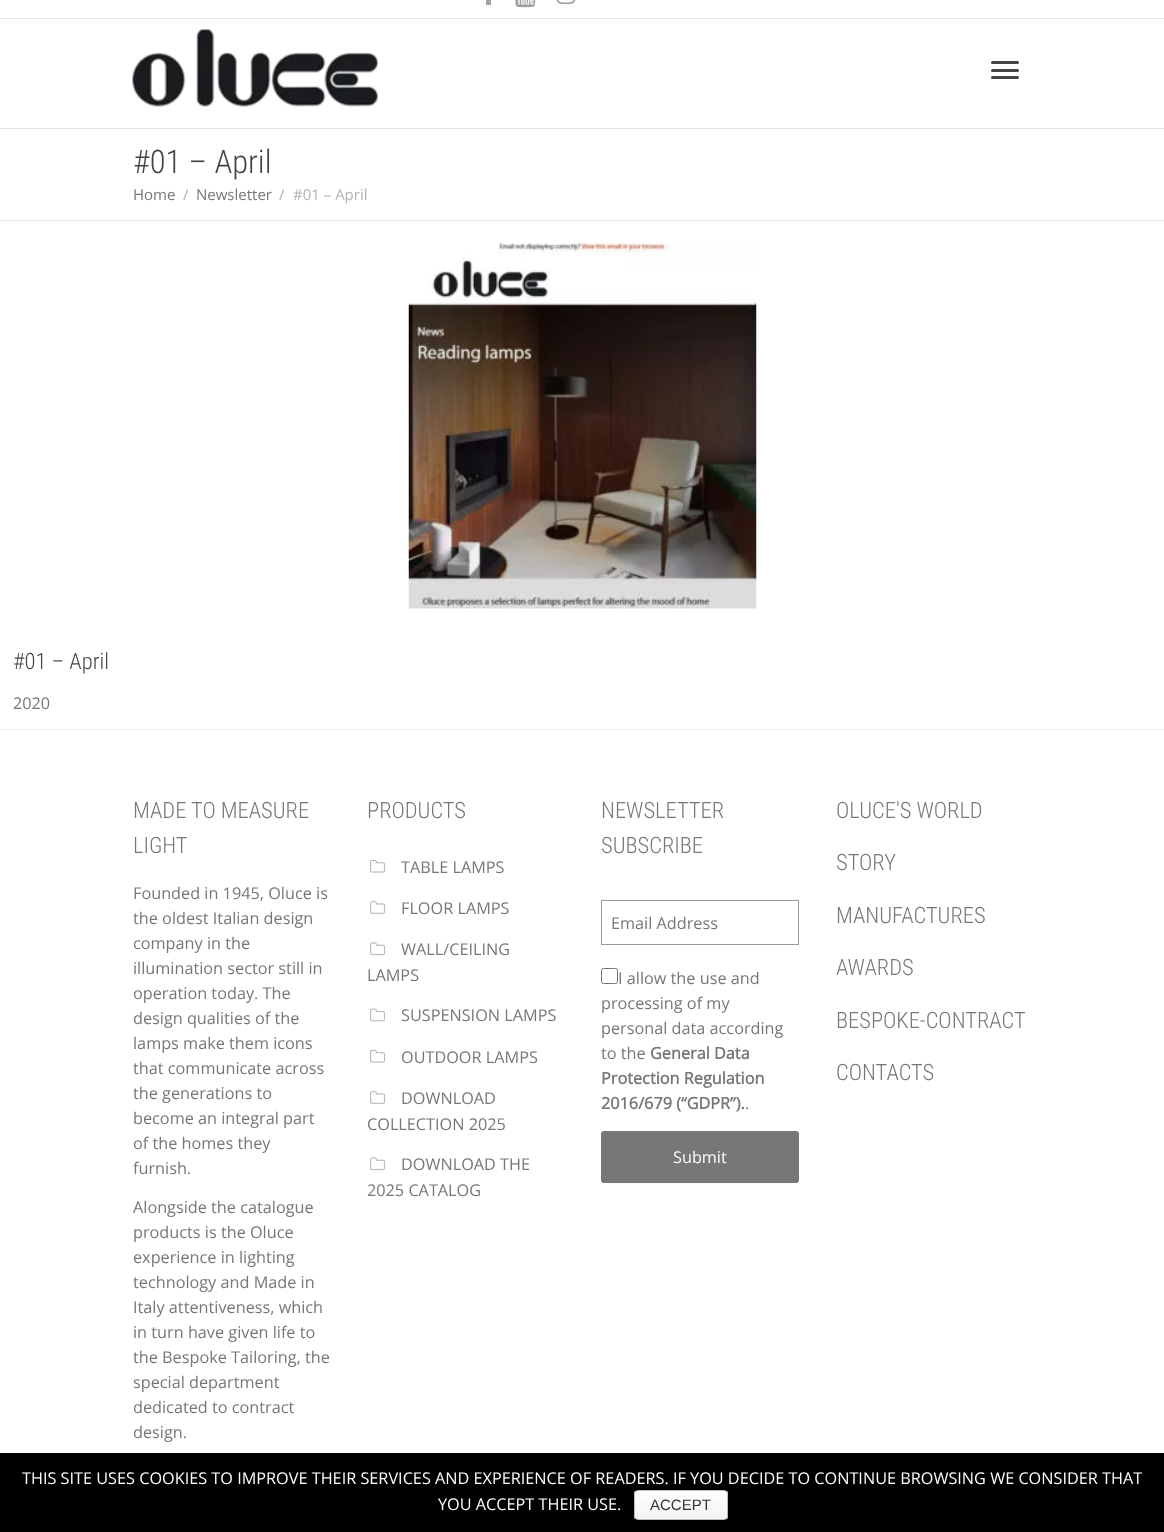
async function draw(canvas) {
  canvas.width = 1164
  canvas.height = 1532
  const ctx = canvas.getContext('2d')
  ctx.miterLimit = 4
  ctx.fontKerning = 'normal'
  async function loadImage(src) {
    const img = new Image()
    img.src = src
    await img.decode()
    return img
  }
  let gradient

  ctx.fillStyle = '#fff'
  ctx.fillRect(0, 0, 1164, 1532)
  ctx.fillStyle = '#e5e5e5'
  ctx.fillRect(0, 18, 1164, 1)
  ctx.fillStyle = '#a2a2a2'
  ctx.fillRect(486, 0, 5, 5)
  ctx.drawImage(await loadImage('image0.png'), 515, 0, 21, 8)
  ctx.drawImage(await loadImage('image1.png'), 556, 0, 20, 5)
  ctx.fillStyle = '#e5e5e5'
  ctx.fillRect(0, 128, 1164, 1)
  ctx.drawImage(await loadImage('image2.png'), 132, 29, 246, 78)
  ctx.fillStyle = '#444'
  ctx.beginPath()
  ctx.roundRect(991, 61, 28, 3, 1.5)
  ctx.fill()
  ctx.beginPath()
  ctx.roundRect(991, 69, 28, 3, 1.5)
  ctx.fill()
  ctx.beginPath()
  ctx.roundRect(991, 76, 28, 3, 1.5)
  ctx.fill()
  ctx.fillStyle = '#e5e5e5'
  ctx.fillRect(0, 220, 1164, 1)
  ctx.font = '300 32.5px Roboto Condensed'
  ctx.fillStyle = '#444'
  ctx.fillText('#01 – April', 133, 173)
  ctx.font = '15px Open Sans'
  ctx.fillStyle = '#777'
  ctx.fillText('Home', 133, 200)
  ctx.fillStyle = '#b3b3b3'
  ctx.fillText('/', 183, 200)
  ctx.fillStyle = '#777'
  ctx.fillText('Newsletter', 196, 200)
  ctx.fillStyle = '#b3b3b3'
  ctx.fillText('/', 279, 200)
  ctx.fillText('#01 – April', 293, 200)
  ctx.drawImage(await loadImage('image3.png'), 408, 242, 349, 367)
  ctx.font = '300 22.5px Roboto Condensed'
  ctx.fillStyle = '#444'
  ctx.fillText('#01 – April', 13, 669)
  ctx.font = '16.25px Open Sans'
  ctx.fillStyle = '#777'
  ctx.fillText('2020', 13, 709)
  ctx.fillStyle = '#eee'
  ctx.fillRect(0, 729, 1164, 1)
  ctx.font = '300 22.5px Roboto Condensed'
  ctx.fillStyle = '#777'
  ctx.fillText('MADE TO MEASURE', 133, 818)
  ctx.fillText('LIGHT', 133, 853)
  ctx.font = '16.25px Open Sans'
  ctx.fillText('Founded in 1945, Oluce is', 133, 899)
  ctx.fillText('the oldest Italian design', 133, 924)
  ctx.fillText('company in the', 133, 949)
  ctx.fillText('illumination sector still in', 133, 974)
  ctx.fillText('operation today. The', 133, 999)
  ctx.fillText('design qualities of the', 133, 1024)
  ctx.fillText('lamps make them icons', 133, 1049)
  ctx.fillText('that communicate across', 133, 1074)
  ctx.fillText('the generations to', 133, 1099)
  ctx.fillText('become an integral part', 133, 1124)
  ctx.fillText('of the homes they', 133, 1149)
  ctx.fillText('furnish.', 133, 1174)
  ctx.fillText('Alongside the catalogue', 133, 1213)
  ctx.fillText('products is the Oluce', 133, 1238)
  ctx.fillText('experience in lighting', 133, 1263)
  ctx.fillText('technology and Made in', 133, 1288)
  ctx.fillText('Italy attentiveness, which', 133, 1313)
  ctx.fillText('in turn have given life to', 133, 1338)
  ctx.fillText('the Bespoke Tailoring, the', 133, 1363)
  ctx.fillText('special department', 133, 1388)
  ctx.fillText('dedicated to contract', 133, 1413)
  ctx.fillText('design.', 133, 1438)
  ctx.font = '300 22.5px Roboto Condensed'
  ctx.fillText('PRODUCTS', 367, 818)
  ctx.drawImage(await loadImage('image4.png'), 370, 859, 16, 14)
  ctx.font = '16.25px Open Sans'
  ctx.fillText('TABLE LAMPS', 401, 873)
  ctx.drawImage(await loadImage('image5.png'), 370, 901, 16, 13)
  ctx.fillText('FLOOR LAMPS', 401, 914)
  ctx.drawImage(await loadImage('image6.png'), 370, 942, 16, 14)
  ctx.fillText('WALL/CEILING', 401, 955)
  ctx.fillText('LAMPS', 367, 981)
  ctx.drawImage(await loadImage('image7.png'), 370, 1008, 16, 14)
  ctx.fillText('SUSPENSION LAMPS', 401, 1021)
  ctx.drawImage(await loadImage('image4.png'), 370, 1049, 16, 14)
  ctx.fillText('OUTDOOR LAMPS', 401, 1063)
  ctx.drawImage(await loadImage('image5.png'), 370, 1091, 16, 13)
  ctx.fillText('DOWNLOAD', 401, 1104)
  ctx.fillText('COLLECTION 2025', 367, 1130)
  ctx.drawImage(await loadImage('image6.png'), 370, 1157, 16, 14)
  ctx.fillText('DOWNLOAD THE', 401, 1170)
  ctx.fillText('2025 CATALOG', 367, 1196)
  ctx.font = '300 22.5px Roboto Condensed'
  ctx.fillText('NEWSLETTER', 601, 818)
  ctx.fillText('SUBSCRIBE', 601, 853)
  ctx.strokeStyle = '#999'
  ctx.strokeRect(601.5, 900.5, 197, 44)
  ctx.font = '16.25px Open Sans'
  ctx.fillText('Email Address', 611, 929)
  ctx.beginPath()
  ctx.roundRect(601.5, 968.5, 16, 15, 2)
  ctx.strokeStyle = '#767676'
  ctx.stroke()
  ctx.fillText('I allow the use and', 618, 984)
  ctx.fillText('processing of my', 601, 1009)
  ctx.fillText('personal data according', 601, 1034)
  ctx.fillText('to the', 601, 1059)
  ctx.font = 'bold 16.25px Open Sans'
  ctx.fillText('General Data', 650, 1059)
  ctx.fillText('Protection Regulation', 601, 1084)
  ctx.fillText('2016/679 (“GDPR”).', 601, 1109)
  ctx.font = '16.25px Open Sans'
  ctx.fillText('.', 745, 1109)
  ctx.beginPath()
  ctx.roundRect(601.5, 1131.5, 197, 51, 2)
  ctx.fill()
  ctx.strokeStyle = '#777'
  ctx.stroke()
  ctx.fillStyle = '#fdfdfd'
  ctx.fillText('Submit', 673, 1163)
  ctx.font = '300 22.5px Roboto Condensed'
  ctx.fillStyle = '#777'
  ctx.fillText('OLUCE\'S WORLD', 836, 818)
  ctx.fillText('STORY', 836, 870)
  ctx.fillText('MANUFACTURES', 836, 923)
  ctx.fillText('AWARDS', 836, 975)
  ctx.fillText('BESPOKE-CONTRACT', 836, 1028)
  ctx.fillText('CONTACTS', 836, 1080)
  ctx.fillStyle = '#000'
  ctx.fillRect(0, 1453, 1164, 79)
  ctx.font = '16.25px Open Sans'
  ctx.fillStyle = '#fdfdfd'
  ctx.fillText('THIS SITE USES COOKIES TO IMPROVE THEIR SERVICES AND EXPERIENCE OF READERS. IF YOU DECIDE TO CONTINUE BROWSING WE CONSIDER THAT', 22, 1484)
  ctx.fillText('YOU ACCEPT THEIR USE.', 438, 1510)
  ctx.save()
  ctx.beginPath()
  ctx.roundRect(634, 1490, 94, 30, 4)
  ctx.clip()
  gradient = ctx.createLinearGradient(681, 1491, 681, 1519)
  gradient.addColorStop(0, '#fefefe')
  gradient.addColorStop(1, '#f4f4f4')
  ctx.fillStyle = gradient
  ctx.fillRect(634, 1491, 94, 28)
  ctx.restore()
  ctx.beginPath()
  ctx.roundRect(634.5, 1490.5, 93, 29, 3.5)
  ctx.strokeStyle = '#bbb'
  ctx.stroke()
  ctx.font = '15px Liberation Sans'
  ctx.fillStyle = '#333'
  ctx.fillText('ACCEPT', 650, 1510)
}

draw(document.querySelector('canvas'))
